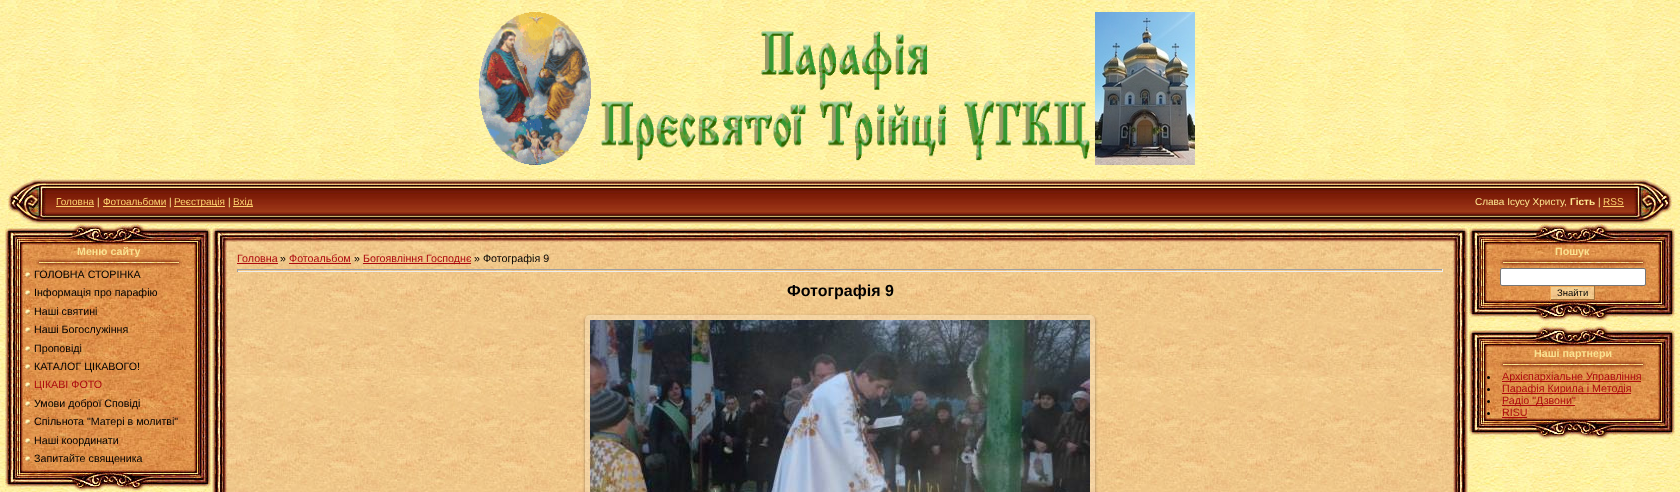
async function draw(canvas) {
  canvas.width = 1680
  canvas.height = 492
  const ctx = canvas.getContext('2d')
  ctx.miterLimit = 4
  ctx.fontKerning = 'normal'
  async function loadImage(src) {
    const img = new Image()
    img.src = src
    await img.decode()
    return img
  }

  ctx.fillStyle = '#fff'
  ctx.fillRect(0, 0, 1680, 492)
  ctx.drawImage(await loadImage('image0.png'), 0, 0, 1680, 492)
  ctx.drawImage(await loadImage('image1.png'), 479, 12, 112, 153)
  ctx.drawImage(await loadImage('image2.png'), 601, 31, 489, 130)
  ctx.drawImage(await loadImage('image3.png'), 1095, 12, 100, 153)
  ctx.drawImage(await loadImage('image4.png'), 46, 179, 1588, 45)
  ctx.drawImage(await loadImage('image5.png'), 8, 179, 38, 45)
  ctx.font = '10px Liberation Sans'
  ctx.fillStyle = '#fed36f'
  ctx.fillText('Головна', 56, 205)
  ctx.fillRect(56, 206, 38, 1)
  ctx.fillStyle = '#ffe991'
  ctx.fillText('|', 97, 205)
  ctx.fillStyle = '#fed36f'
  ctx.fillText('Фотоальбоми', 103, 205)
  ctx.fillRect(103, 206, 63, 1)
  ctx.fillStyle = '#ffe991'
  ctx.fillText('|', 169, 205)
  ctx.fillStyle = '#fed36f'
  ctx.fillRect(174, 206, 51, 1)
  ctx.fillText('Реєстрація', 174, 205)
  ctx.fillStyle = '#ffe991'
  ctx.fillText('|', 228, 205)
  ctx.fillStyle = '#fed36f'
  ctx.fillRect(233, 206, 20, 1)
  ctx.fillText('Вхід', 233, 205)
  ctx.fillStyle = '#ffe991'
  ctx.fillText('Слава Ісусу Христу,', 1475, 205)
  ctx.font = 'bold 10px Liberation Sans'
  ctx.fillText('Гість', 1570, 205)
  ctx.font = '10px Liberation Sans'
  ctx.fillText('|', 1598, 205)
  ctx.fillStyle = '#fed36f'
  ctx.fillText('RSS', 1603, 205)
  ctx.fillRect(1603, 206, 21, 1)
  ctx.drawImage(await loadImage('image6.png'), 1634, 179, 38, 45)
  ctx.drawImage(await loadImage('image7.png'), 5, 224, 206, 21)
  ctx.drawImage(await loadImage('image8.png'), 5, 245, 18, 225)
  ctx.drawImage(await loadImage('image9.png'), 23, 245, 171, 23)
  ctx.font = 'bold 10.7px Liberation Sans'
  ctx.fillStyle = '#fae291'
  ctx.fillText('Меню сайту', 77, 255)
  ctx.drawImage(await loadImage('image10.png'), 35, 257, 147, 11)
  ctx.drawImage(await loadImage('image11.png'), 194, 245, 17, 225)
  ctx.drawImage(await loadImage('image12.png'), 23, 268, 171, 202)
  ctx.drawImage(await loadImage('image13.png'), 25, 272, 5, 6)
  ctx.font = '10.7px Liberation Sans'
  ctx.fillStyle = '#000'
  ctx.fillText('ГОЛОВНА СТОРІНКА', 34, 278)
  ctx.drawImage(await loadImage('image14.png'), 25, 290, 5, 6)
  ctx.fillText('Інформація про парафію', 34, 296)
  ctx.drawImage(await loadImage('image15.png'), 25, 309, 5, 6)
  ctx.fillText('Наші святині', 34, 315)
  ctx.drawImage(await loadImage('image16.png'), 25, 327, 5, 6)
  ctx.fillText('Наші Богослужіння', 34, 333)
  ctx.drawImage(await loadImage('image17.png'), 25, 346, 5, 6)
  ctx.fillText('Проповіді', 34, 352)
  ctx.drawImage(await loadImage('image18.png'), 25, 364, 5, 6)
  ctx.fillText('КАТАЛОГ ЦІКАВОГО!', 34, 370)
  ctx.drawImage(await loadImage('image19.png'), 25, 382, 5, 6)
  ctx.fillStyle = '#ad090e'
  ctx.fillText('ЦІКАВІ ФОТО', 34, 388)
  ctx.drawImage(await loadImage('image20.png'), 25, 401, 5, 6)
  ctx.fillStyle = '#000'
  ctx.fillText('Умови доброї Сповіді', 34, 407)
  ctx.drawImage(await loadImage('image21.png'), 25, 419, 5, 6)
  ctx.fillText('Спільнота "Матері в молитві"', 34, 425)
  ctx.drawImage(await loadImage('image22.png'), 25, 438, 5, 6)
  ctx.fillText('Наші координати', 34, 444)
  ctx.drawImage(await loadImage('image23.png'), 25, 456, 5, 6)
  ctx.fillText('Запитайте священика', 34, 462)
  ctx.drawImage(await loadImage('image24.png'), 5, 470, 206, 21)
  ctx.drawImage(await loadImage('image25.png'), 211, 224, 16, 18)
  ctx.drawImage(await loadImage('image26.png'), 227, 224, 1226, 18)
  ctx.drawImage(await loadImage('image27.png'), 1453, 224, 16, 18)
  ctx.drawImage(await loadImage('image28.png'), 211, 242, 16, 250)
  ctx.drawImage(await loadImage('image29.png'), 227, 242, 1226, 250)
  ctx.fillStyle = '#ad090e'
  ctx.fillText('Головна', 237, 262)
  ctx.fillRect(237, 263, 41, 1)
  ctx.fillStyle = '#000'
  ctx.fillText('»', 280, 262)
  ctx.fillStyle = '#ad090e'
  ctx.fillText('Фотоальбом', 289, 262)
  ctx.fillRect(289, 263, 62, 1)
  ctx.fillStyle = '#000'
  ctx.fillText('»', 354, 262)
  ctx.fillStyle = '#ad090e'
  ctx.fillRect(363, 263, 108, 1)
  ctx.fillText('Богоявління Господнє', 363, 262)
  ctx.fillStyle = '#000'
  ctx.fillText('» Фотографія 9', 474, 262)
  ctx.fillStyle = '#9f9f9f'
  ctx.fillRect(237, 269, 1206, 1)
  ctx.fillStyle = '#eee'
  ctx.fillRect(1442, 269, 1, 3)
  ctx.fillRect(237, 271, 1206, 1)
  ctx.fillStyle = '#9f9f9f'
  ctx.fillRect(237, 269, 1, 3)
  ctx.font = 'bold 16px Liberation Sans'
  ctx.fillStyle = '#000'
  ctx.fillText('Фотографія 9', 787, 296)
  ctx.save()
  ctx.beginPath()
  ctx.moveTo(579, 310)
  ctx.lineTo(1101, 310)
  ctx.lineTo(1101, 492)
  ctx.lineTo(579, 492)
  ctx.closePath()
  ctx.moveTo(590, 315)
  ctx.lineTo(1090, 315)
  ctx.bezierCurveTo(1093, 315, 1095, 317, 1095, 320)
  ctx.lineTo(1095, 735)
  ctx.bezierCurveTo(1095, 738, 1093, 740, 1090, 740)
  ctx.lineTo(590, 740)
  ctx.bezierCurveTo(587, 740, 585, 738, 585, 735)
  ctx.lineTo(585, 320)
  ctx.bezierCurveTo(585, 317, 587, 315, 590, 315)
  ctx.closePath()
  ctx.clip('evenodd')
  ctx.fillStyle = '#0000005e'
  ctx.filter = 'blur(1.5px)'
  ctx.beginPath()
  ctx.roundRect(585, 316, 510, 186, 5)
  ctx.fill()
  ctx.filter = 'none'
  ctx.restore()
  ctx.drawImage(await loadImage('image30.png'), 585, 315, 510, 177)
  ctx.drawImage(await loadImage('image31.png'), 590, 320, 500, 172)
  ctx.drawImage(await loadImage('image32.png'), 1453, 242, 16, 250)
  ctx.drawImage(await loadImage('image7.png'), 1469, 224, 206, 21)
  ctx.drawImage(await loadImage('image33.png'), 1469, 245, 18, 55)
  ctx.drawImage(await loadImage('image9.png'), 1487, 245, 171, 23)
  ctx.font = 'bold 10.7px Liberation Sans'
  ctx.fillStyle = '#fae291'
  ctx.fillText('Пошук', 1555, 255)
  ctx.drawImage(await loadImage('image10.png'), 1499, 257, 147, 11)
  ctx.drawImage(await loadImage('image34.png'), 1658, 245, 17, 55)
  ctx.drawImage(await loadImage('image35.png'), 1487, 268, 171, 32)
  ctx.fillStyle = '#fff'
  ctx.beginPath()
  ctx.roundRect(1500.5, 268.5, 145, 17, 1.5)
  ctx.fill()
  ctx.strokeStyle = '#767676'
  ctx.stroke()
  ctx.drawImage(await loadImage('image36.png'), 1551, 287, 43, 12)
  ctx.fillStyle = '#f3ab56'
  ctx.fillRect(1550, 286, 45, 1)
  ctx.fillStyle = '#a27239'
  ctx.fillRect(1594, 286, 1, 14)
  ctx.fillRect(1550, 299, 45, 1)
  ctx.fillStyle = '#f3ab56'
  ctx.fillRect(1550, 286, 1, 14)
  ctx.font = '9.5px Liberation Sans'
  ctx.fillStyle = '#000'
  ctx.fillText('Знайти', 1557, 296)
  ctx.drawImage(await loadImage('image24.png'), 1469, 300, 206, 21)
  ctx.drawImage(await loadImage('image7.png'), 1469, 326, 206, 21)
  ctx.drawImage(await loadImage('image37.png'), 1469, 347, 18, 71)
  ctx.drawImage(await loadImage('image9.png'), 1487, 347, 171, 23)
  ctx.font = 'bold 10.7px Liberation Sans'
  ctx.fillStyle = '#fae291'
  ctx.fillText('Наші партнери', 1534, 357)
  ctx.drawImage(await loadImage('image10.png'), 1499, 359, 147, 11)
  ctx.drawImage(await loadImage('image38.png'), 1658, 347, 17, 71)
  ctx.drawImage(await loadImage('image39.png'), 1487, 370, 171, 48)
  ctx.fillStyle = '#000'
  ctx.beginPath()
  ctx.arc(1488.5, 377.5, 1.5, 0, 2 * Math.PI)
  ctx.fill()
  ctx.fillStyle = '#ad090e'
  ctx.fillRect(1502, 381, 139, 1)
  ctx.font = '10.7px Liberation Sans'
  ctx.fillText('Архієпархіальне Управління', 1502, 380)
  ctx.fillStyle = '#000'
  ctx.beginPath()
  ctx.arc(1488.5, 389.5, 1.5, 0, 2 * Math.PI)
  ctx.fill()
  ctx.fillStyle = '#ad090e'
  ctx.fillRect(1502, 393, 129, 1)
  ctx.fillText('Парафія Кирила і Методія', 1502, 392)
  ctx.fillStyle = '#000'
  ctx.beginPath()
  ctx.arc(1488.5, 401.5, 1.5, 0, 2 * Math.PI)
  ctx.fill()
  ctx.fillStyle = '#ad090e'
  ctx.fillRect(1502, 405, 73, 1)
  ctx.fillText('Радіо "Дзвони"', 1502, 404)
  ctx.fillStyle = '#000'
  ctx.beginPath()
  ctx.arc(1488.5, 413.5, 1.5, 0, 2 * Math.PI)
  ctx.fill()
  ctx.fillStyle = '#ad090e'
  ctx.fillText('RISU', 1502, 416)
  ctx.fillRect(1502, 417, 25, 1)
  ctx.drawImage(await loadImage('image24.png'), 1469, 418, 206, 21)
}

draw(document.querySelector('canvas'))
